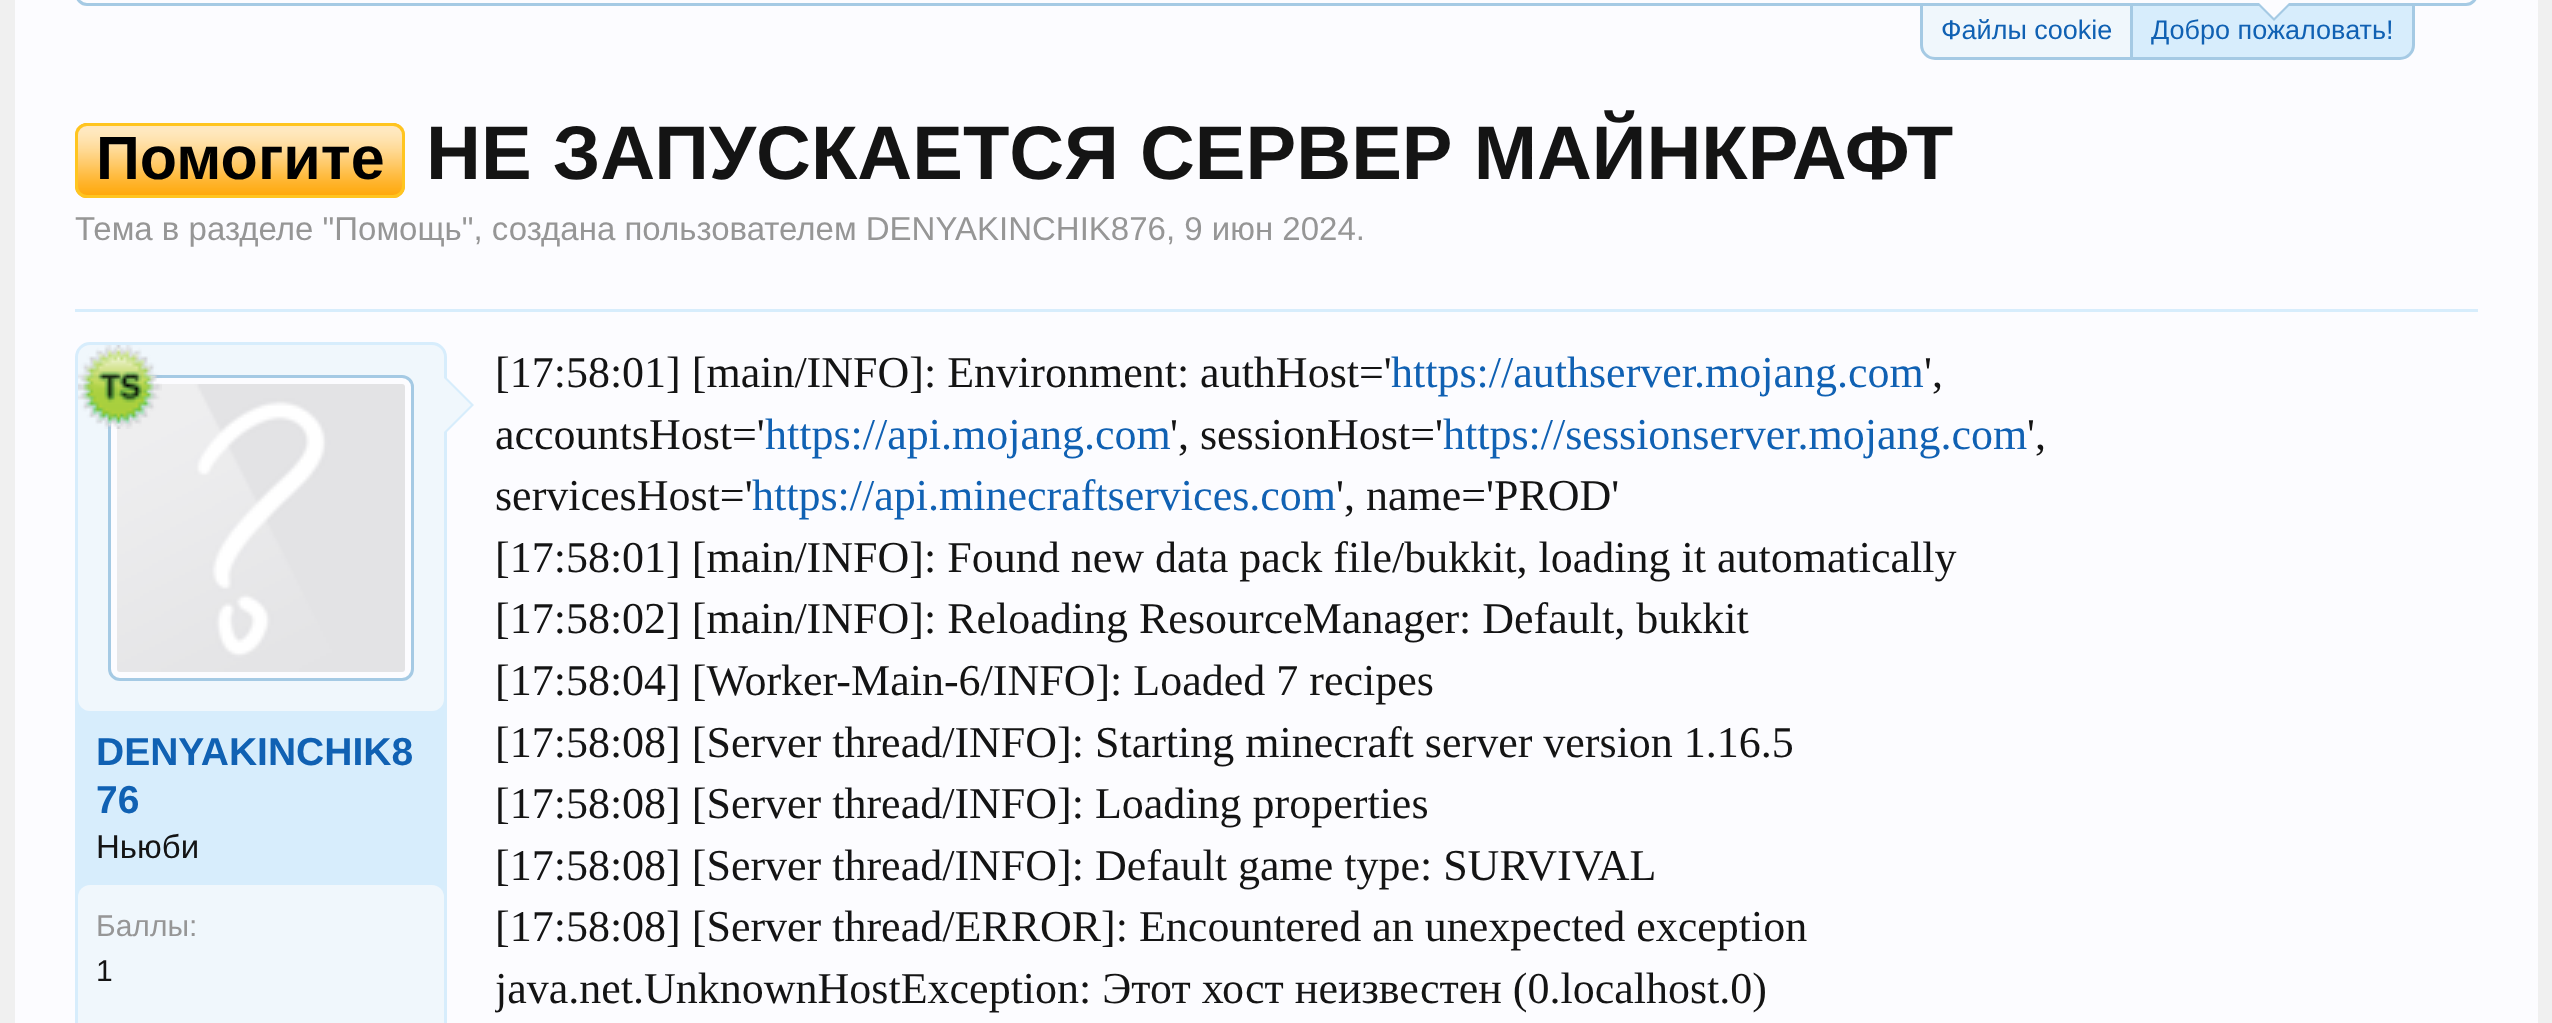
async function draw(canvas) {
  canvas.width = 2552
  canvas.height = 1023
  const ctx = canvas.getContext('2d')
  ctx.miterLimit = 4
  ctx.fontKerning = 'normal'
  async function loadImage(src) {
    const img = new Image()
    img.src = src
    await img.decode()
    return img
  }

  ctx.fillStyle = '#f0f0f0'
  ctx.fillRect(0, 0, 2552, 1023)
  ctx.fillStyle = '#fcfcff'
  ctx.fillRect(15, 0, 2523, 1023)
  ctx.beginPath()
  ctx.roundRect(76.5, -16.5, 2400, 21, 13.5)
  ctx.strokeStyle = '#a5cae4'
  ctx.lineWidth = 3
  ctx.stroke()
  ctx.fillStyle = '#f0f7fc'
  ctx.beginPath()
  ctx.roundRect(1921.5, 4.5, 210, 54, [0, 0, 0, 13.5])
  ctx.fill()
  ctx.stroke()
  ctx.font = '27px Liberation Sans'
  ctx.fillStyle = '#1061b3'
  ctx.fillText('Файлы cookie', 1941, 39)
  ctx.fillStyle = '#d7edfc'
  ctx.beginPath()
  ctx.roundRect(2131.5, 4.5, 282, 54, [0, 0, 13.5, 0])
  ctx.fill()
  ctx.stroke()
  ctx.fillStyle = '#1061b3'
  ctx.fillText('Добро пожаловать!', 2151, 39)
  ctx.fillStyle = '#a5cae4'
  ctx.beginPath()
  ctx.moveTo(2259, 6)
  ctx.lineTo(2289, 6)
  ctx.lineTo(2274, 21)
  ctx.closePath()
  ctx.fill()
  ctx.fillStyle = '#fcfcff'
  ctx.beginPath()
  ctx.moveTo(2259, 3)
  ctx.lineTo(2289, 3)
  ctx.lineTo(2274, 18)
  ctx.closePath()
  ctx.fill()
  ctx.fillStyle = '#ffa500'
  ctx.beginPath()
  ctx.roundRect(75, 123, 330, 75, 12)
  ctx.fill()
  ctx.drawImage(await loadImage('image0.png'), 75, 126, 330, 72)
  ctx.beginPath()
  ctx.roundRect(76.5, 124.5, 327, 72, 10.5)
  ctx.strokeStyle = '#ffc520'
  ctx.stroke()
  ctx.font = 'bold 61px Liberation Sans'
  ctx.fillStyle = '#000'
  ctx.fillText('Помогите', 96, 179)
  ctx.font = 'bold 76px Liberation Sans'
  ctx.fillStyle = '#141414'
  ctx.fillText('НЕ ЗАПУСКАЕТСЯ СЕРВЕР МАЙНКРАФТ', 426, 179)
  ctx.font = '33px Liberation Sans'
  ctx.fillStyle = '#969696'
  ctx.fillText('Тема в разделе "Помощь", создана пользователем DENYAKINCHIK876, 9 июн 2024.', 75, 240)
  ctx.fillStyle = '#d7edfc'
  ctx.fillRect(75, 309, 2403, 3)
  ctx.beginPath()
  ctx.roundRect(76.5, 343.5, 369, 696, 13.5)
  ctx.fill()
  ctx.strokeStyle = '#d7edfc'
  ctx.stroke()
  ctx.fillStyle = '#f0f7fc'
  ctx.beginPath()
  ctx.roundRect(78, 345, 366, 366, 12)
  ctx.fill()
  ctx.fillStyle = '#fcfcff'
  ctx.beginPath()
  ctx.roundRect(109.5, 376.5, 303, 303, 10.5)
  ctx.fill()
  ctx.strokeStyle = '#a5cae4'
  ctx.stroke()
  ctx.drawImage(await loadImage('image1.png'), 117, 384, 288, 288)
  ctx.drawImage(await loadImage('image2.png'), 78, 345, 84, 84)
  ctx.fillStyle = '#d7edfc'
  ctx.beginPath()
  ctx.moveTo(444, 435)
  ctx.lineTo(444, 375)
  ctx.lineTo(474, 405)
  ctx.closePath()
  ctx.fill()
  ctx.fillStyle = '#f0f7fc'
  ctx.beginPath()
  ctx.moveTo(441, 435)
  ctx.lineTo(441, 375)
  ctx.lineTo(471, 405)
  ctx.closePath()
  ctx.fill()
  ctx.font = 'bold 39px Liberation Sans'
  ctx.fillStyle = '#1061b3'
  ctx.fillText('DENYAKINCHIK8', 96, 765)
  ctx.fillText('76', 96, 813)
  ctx.font = '33px Liberation Sans'
  ctx.fillStyle = '#141414'
  ctx.fillText('Ньюби', 96, 858)
  ctx.fillStyle = '#f0f7fc'
  ctx.beginPath()
  ctx.roundRect(78, 885, 366, 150, 12)
  ctx.fill()
  ctx.font = '30px Liberation Sans'
  ctx.fillStyle = '#969696'
  ctx.fillText('Баллы:', 96, 936)
  ctx.fillStyle = '#141414'
  ctx.fillText('1', 96, 981)
  ctx.font = '44px Liberation Serif'
  ctx.fillText('[17:58:01] [main/INFO]: Environment: authHost=\'', 495, 387)
  ctx.fillStyle = '#1061b3'
  ctx.fillText('https://authserver.mojang.com', 1391, 387)
  ctx.fillStyle = '#141414'
  ctx.fillText('\',', 1924, 387)
  ctx.fillText('accountsHost=\'', 495, 449)
  ctx.fillStyle = '#1061b3'
  ctx.fillText('https://api.mojang.com', 765, 449)
  ctx.fillStyle = '#141414'
  ctx.fillText('\', sessionHost=\'', 1170, 449)
  ctx.fillStyle = '#1061b3'
  ctx.fillText('https://sessionserver.mojang.com', 1443, 449)
  ctx.fillStyle = '#141414'
  ctx.fillText('\',', 2027, 449)
  ctx.fillText('servicesHost=\'', 495, 510)
  ctx.fillStyle = '#1061b3'
  ctx.fillText('https://api.minecraftservices.com', 752, 510)
  ctx.fillStyle = '#141414'
  ctx.fillText('\', name=\'PROD\'', 1336, 510)
  ctx.fillText('[17:58:01] [main/INFO]: Found new data pack file/bukkit, loading it automatically', 495, 572)
  ctx.fillText('[17:58:02] [main/INFO]: Reloading ResourceManager: Default, bukkit', 495, 633)
  ctx.fillText('[17:58:04] [Worker-Main-6/INFO]: Loaded 7 recipes', 495, 695)
  ctx.fillText('[17:58:08] [Server thread/INFO]: Starting minecraft server version 1.16.5', 495, 757)
  ctx.fillText('[17:58:08] [Server thread/INFO]: Loading properties', 495, 818)
  ctx.fillText('[17:58:08] [Server thread/INFO]: Default game type: SURVIVAL', 495, 880)
  ctx.fillText('[17:58:08] [Server thread/ERROR]: Encountered an unexpected exception', 495, 941)
  ctx.save()
  ctx.beginPath()
  ctx.rect(495, 342, 1983, 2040)
  ctx.clip()
  ctx.fillText('java.net.UnknownHostException: Этот хост неизвестен (0.localhost.0)', 495, 1003)
  ctx.restore()
}

draw(document.querySelector('canvas'))
